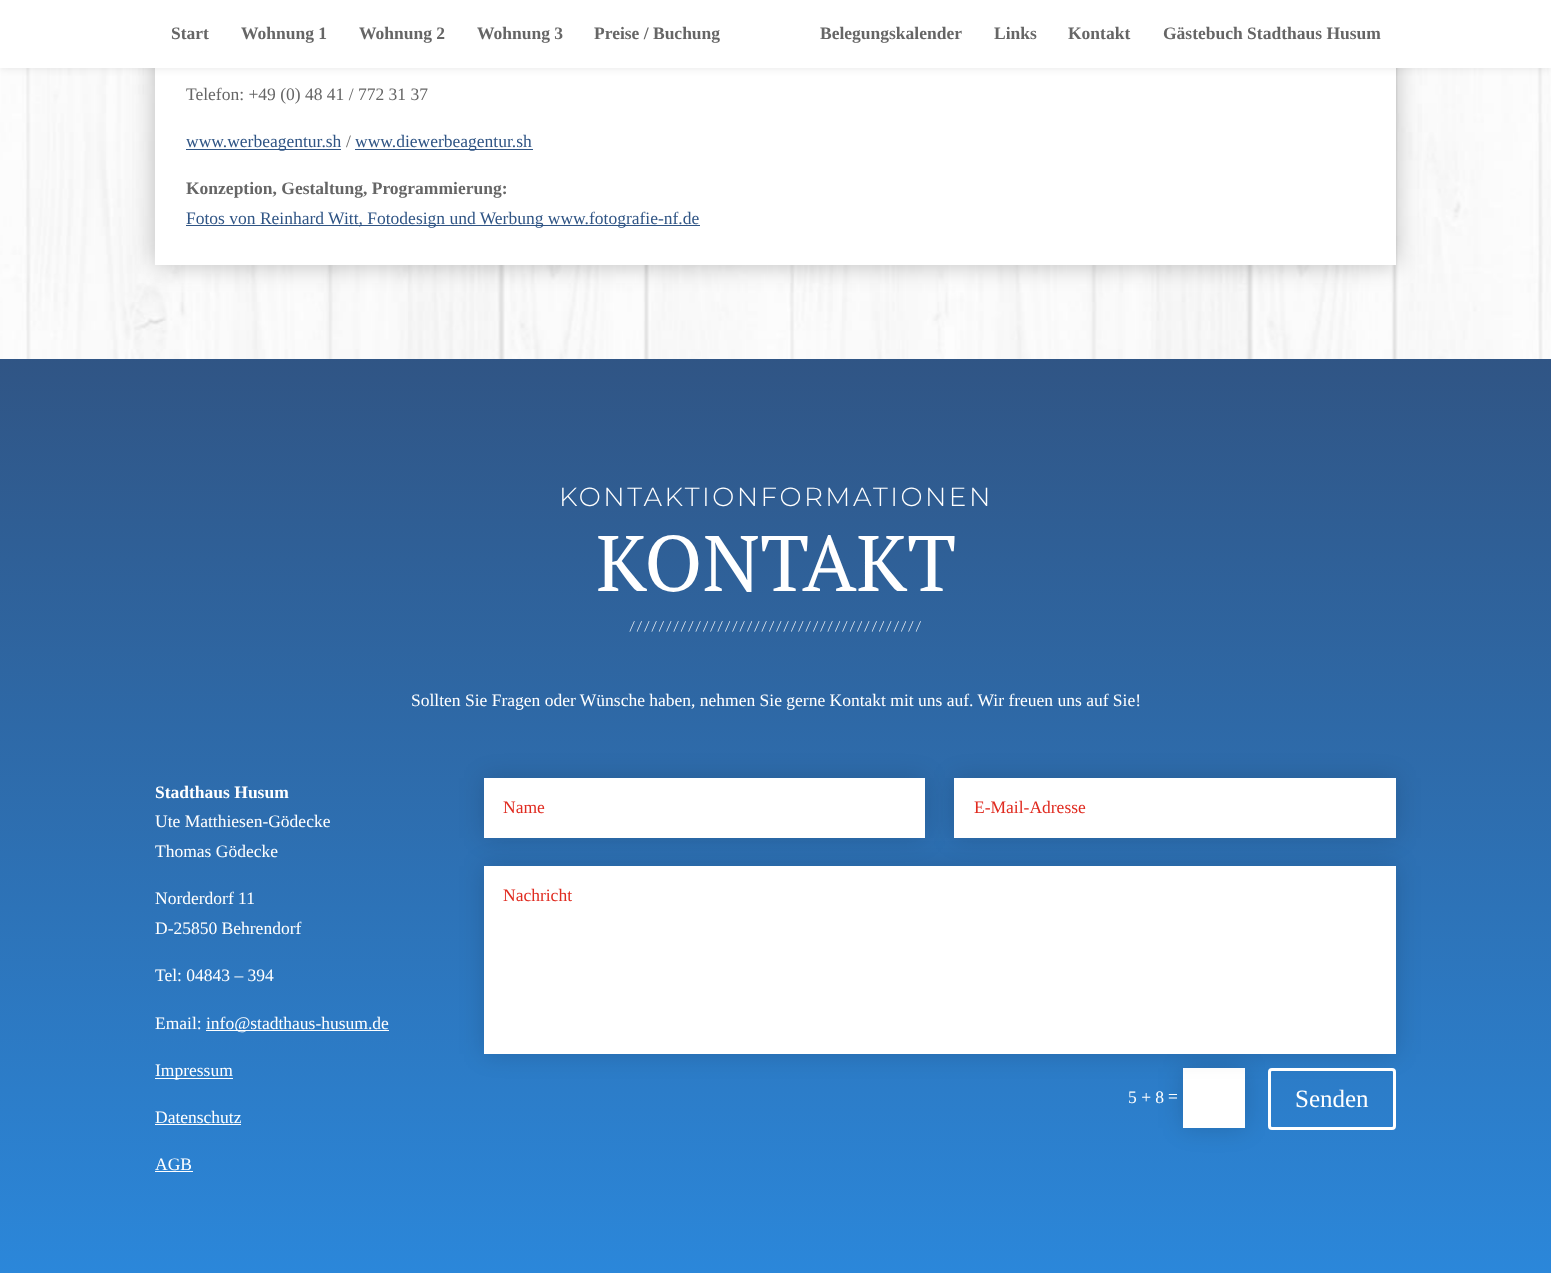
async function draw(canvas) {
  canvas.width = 1551
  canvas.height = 1273
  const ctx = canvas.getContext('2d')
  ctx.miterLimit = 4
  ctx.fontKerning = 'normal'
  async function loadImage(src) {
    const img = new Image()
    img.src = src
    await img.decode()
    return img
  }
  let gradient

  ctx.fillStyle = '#fff'
  ctx.fillRect(0, 0, 1551, 1273)
  ctx.drawImage(await loadImage('image0.png'), 0, 68, 1551, 291)
  ctx.fillStyle = '#00000040'
  ctx.filter = 'blur(12.5px)'
  ctx.beginPath()
  ctx.rect(155, -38, 1241, 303)
  ctx.fill()
  ctx.filter = 'none'
  ctx.fillStyle = '#fff'
  ctx.fillRect(155, 68, 1241, 197)
  ctx.fillStyle = '#0000001a'
  ctx.filter = 'blur(4.5px)'
  ctx.beginPath()
  ctx.rect(0, 0, 1551, 68)
  ctx.fill()
  ctx.filter = 'none'
  ctx.fillStyle = '#fff'
  ctx.fillRect(0, 0, 1551, 68)
  ctx.font = 'bold 17.5px Liberation Serif'
  ctx.fillStyle = '#666'
  ctx.fillText('Start', 171, 39)
  ctx.fillText('Wohnung 1', 241, 39)
  ctx.fillText('Wohnung 2', 359, 39)
  ctx.fillText('Wohnung 3', 477, 39)
  ctx.fillText('Preise / Buchung', 594, 39)
  ctx.fillText('Belegungskalender', 820, 39)
  ctx.fillText('Links', 994, 39)
  ctx.fillText('Kontakt', 1068, 39)
  ctx.fillText('Gästebuch Stadthaus Husum', 1163, 39)
  ctx.font = '17.5px Liberation Serif'
  ctx.fillText('Telefon: +49 (0) 48 41 / 772 31 37', 186, 100)
  ctx.fillStyle = '#305585'
  ctx.fillRect(186, 149, 155, 1)
  ctx.fillText('www.werbeagentur.sh', 186, 147)
  ctx.fillStyle = '#666'
  ctx.fillText('/', 346, 147)
  ctx.fillStyle = '#305585'
  ctx.fillRect(355, 149, 178, 1)
  ctx.fillText('www.diewerbeagentur.sh', 355, 147)
  ctx.font = 'bold 17.5px Liberation Serif'
  ctx.fillStyle = '#666'
  ctx.fillText('Konzeption, Gestaltung, Programmierung:', 186, 194)
  ctx.fillStyle = '#305585'
  ctx.fillRect(186, 225, 514, 1)
  ctx.font = '17.5px Liberation Serif'
  ctx.fillText('Fotos von Reinhard Witt, Fotodesign und Werbung www.fotografie-nf.de', 186, 224)
  gradient = ctx.createLinearGradient(776, 359, 776, 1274)
  gradient.addColorStop(0, '#305585')
  gradient.addColorStop(1, '#2b87da')
  ctx.fillStyle = gradient
  ctx.fillRect(0, 359, 1551, 914)
  ctx.letterSpacing = '2.5px'
  ctx.font = '300 26.25px Montserrat'
  ctx.fillStyle = '#fff'
  ctx.fillText('KONTAKTIONFORMATIONEN', 559, 506)
  ctx.letterSpacing = '0px'
  ctx.font = '78.75px PT Serif'
  ctx.fillText('KONTAKT', 596, 591)
  ctx.font = '12.5px PT Serif'
  ctx.fillText('/ / / / / / / / / / / / / / / / / / / / / / / / / / / / / / / / / / / / / / / /', 630, 630)
  ctx.font = '17.5px Liberation Serif'
  ctx.fillText('Sollten Sie Fragen oder Wünsche haben, nehmen Sie gerne Kontakt mit uns auf. Wir freuen uns auf Sie!', 411, 706)
  ctx.font = 'bold 17.5px Liberation Serif'
  ctx.fillText('Stadthaus Husum', 155, 798)
  ctx.font = '17.5px Liberation Serif'
  ctx.fillText('Ute Matthiesen-Gödecke', 155, 827)
  ctx.fillText('Thomas Gödecke', 155, 857)
  ctx.fillText('Norderdorf 11', 155, 904)
  ctx.fillText('D-25850 Behrendorf', 155, 934)
  ctx.fillText('Tel: 04843 – 394', 155, 981)
  ctx.fillText('Email:', 155, 1029)
  ctx.fillRect(206, 1030, 183, 1)
  ctx.fillText('info@stadthaus-husum.de', 206, 1029)
  ctx.fillRect(155, 1078, 78, 1)
  ctx.fillText('Impressum', 155, 1076)
  ctx.fillText('Datenschutz', 155, 1123)
  ctx.fillRect(155, 1124, 86, 1)
  ctx.fillText('AGB', 155, 1170)
  ctx.fillRect(155, 1171, 38, 1)
  ctx.fillStyle = '#00000026'
  ctx.filter = 'blur(12.5px)'
  ctx.beginPath()
  ctx.rect(484, 778, 441, 60)
  ctx.fill()
  ctx.filter = 'none'
  ctx.fillStyle = '#fff'
  ctx.fillRect(484, 778, 441, 60)
  ctx.fillStyle = '#e02b20'
  ctx.fillText('Name', 503, 813)
  ctx.fillStyle = '#00000026'
  ctx.filter = 'blur(12.5px)'
  ctx.beginPath()
  ctx.rect(954, 778, 442, 60)
  ctx.fill()
  ctx.filter = 'none'
  ctx.fillStyle = '#fff'
  ctx.fillRect(954, 778, 442, 60)
  ctx.fillStyle = '#e02b20'
  ctx.fillText('E-Mail-Adresse', 974, 813)
  ctx.fillStyle = '#00000026'
  ctx.filter = 'blur(12.5px)'
  ctx.beginPath()
  ctx.rect(1183, 1068, 62, 60)
  ctx.fill()
  ctx.filter = 'none'
  ctx.fillStyle = '#fff'
  ctx.fillRect(1183, 1068, 62, 60)
  ctx.fillStyle = '#00000026'
  ctx.filter = 'blur(12.5px)'
  ctx.beginPath()
  ctx.rect(484, 866, 912, 188)
  ctx.fill()
  ctx.filter = 'none'
  ctx.fillStyle = '#fff'
  ctx.fillRect(484, 866, 912, 188)
  ctx.fillStyle = '#e02b20'
  ctx.fillText('Nachricht', 503, 901)
  ctx.fillStyle = '#fff'
  ctx.fillText('5 + 8', 1128, 1103)
  ctx.fillText('=', 1168, 1102)
  ctx.beginPath()
  ctx.roundRect(1269.5, 1069.5, 125, 59, 2.5)
  ctx.strokeStyle = '#fff'
  ctx.lineWidth = 3
  ctx.stroke()
  ctx.font = '25px Liberation Serif'
  ctx.fillText('Senden', 1295, 1107)
}

draw(document.querySelector('canvas'))
